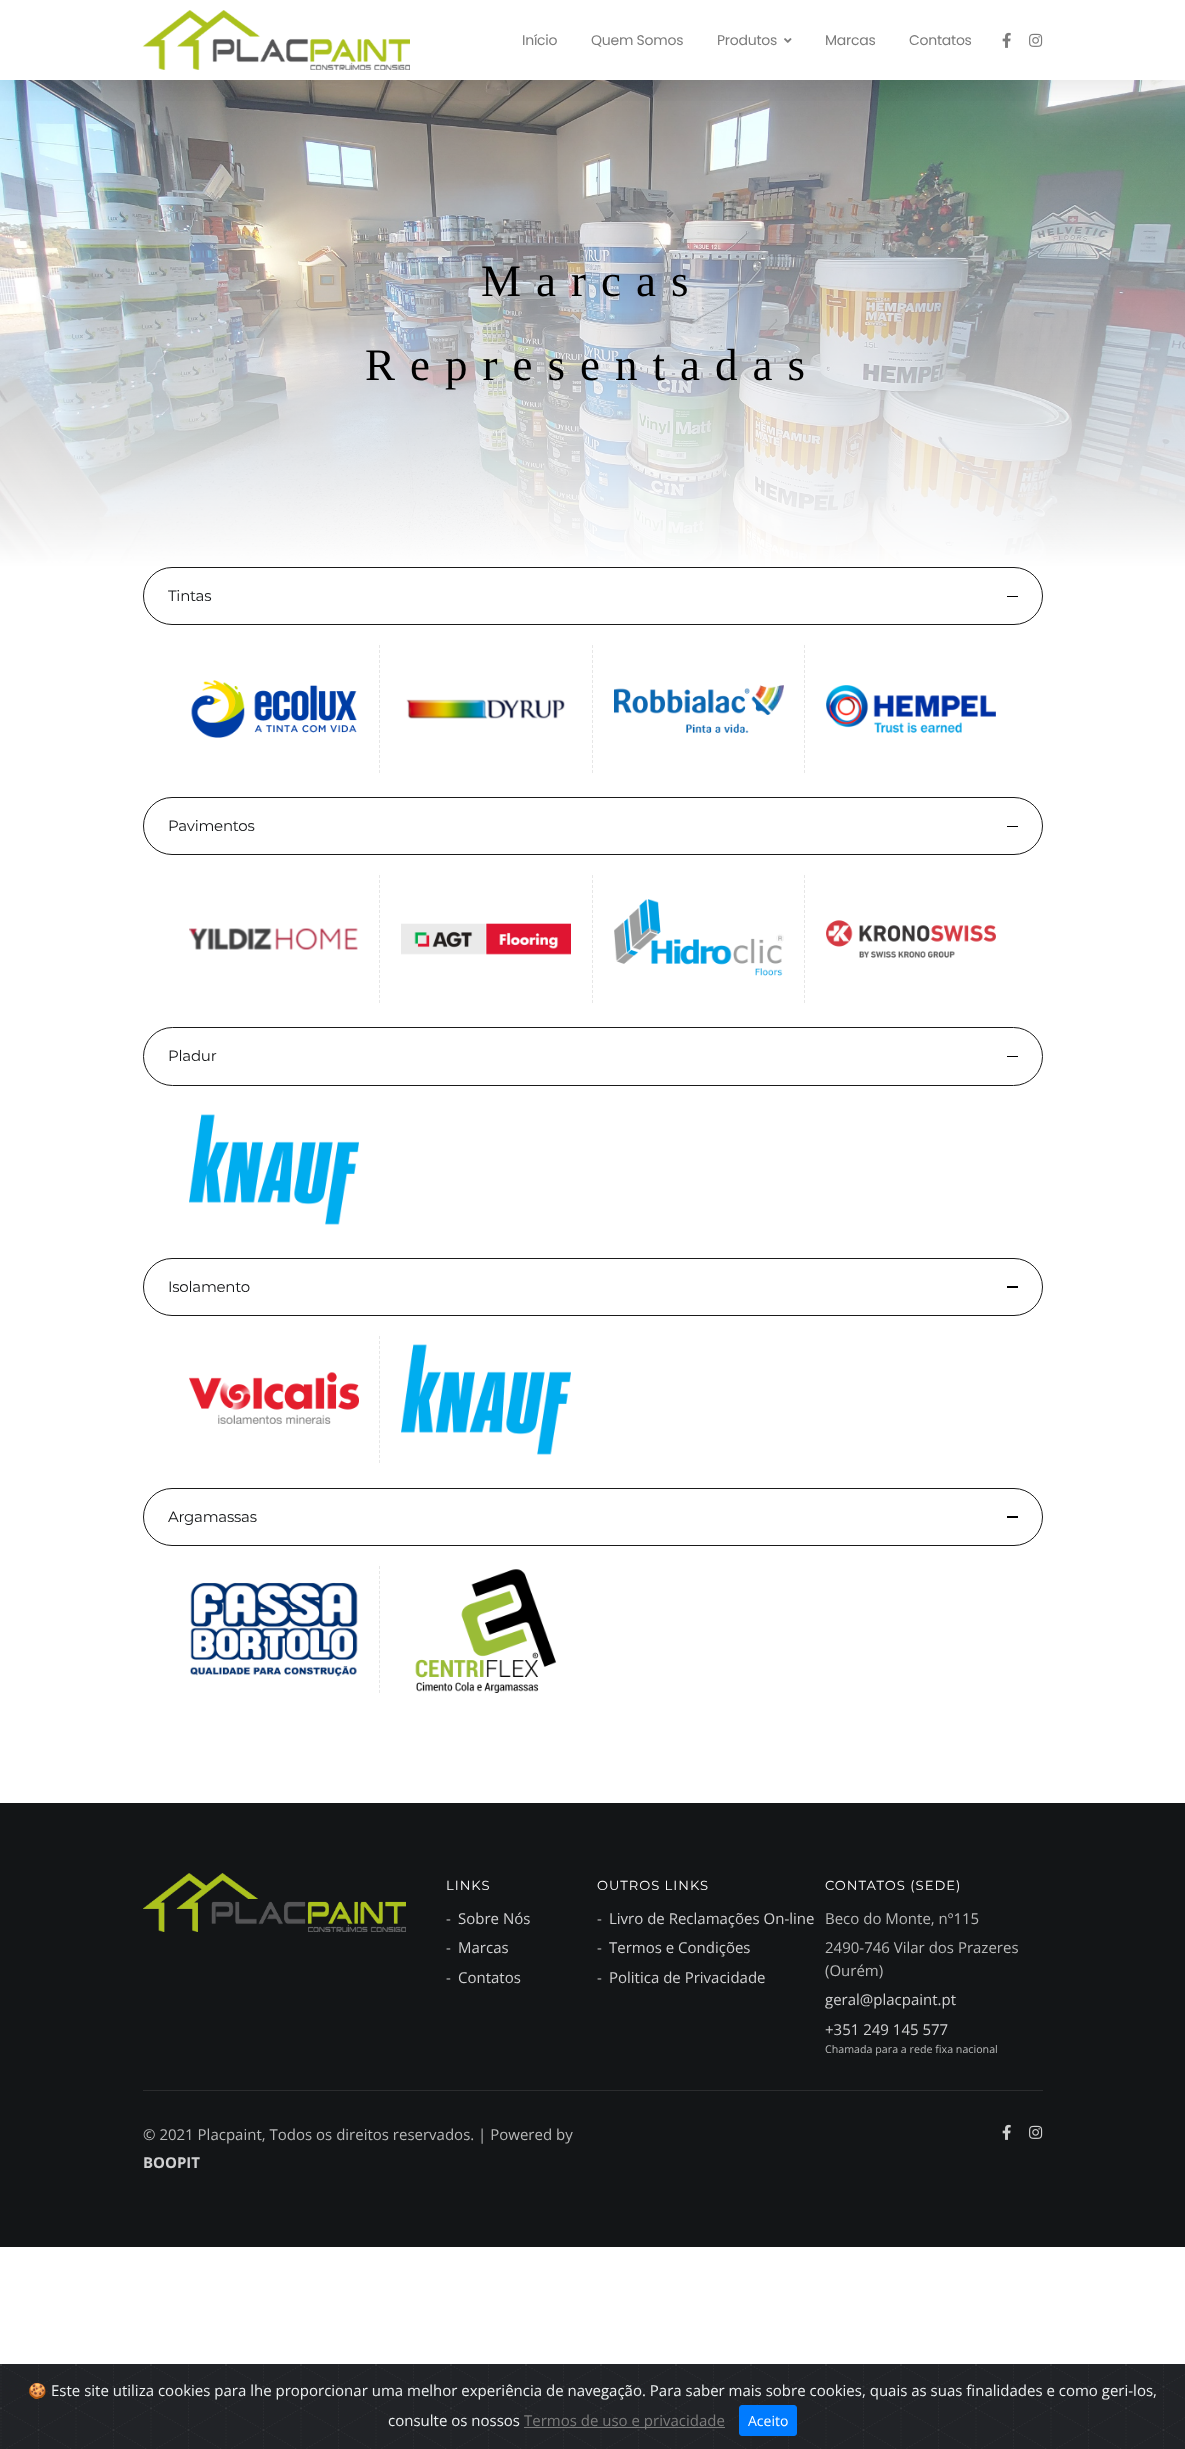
async function draw(canvas) {
  canvas.width = 1185
  canvas.height = 2449
  const ctx = canvas.getContext('2d')
  ctx.miterLimit = 4
  ctx.fontKerning = 'normal'
  async function loadImage(src) {
    const img = new Image()
    img.src = src
    await img.decode()
    return img
  }

  ctx.fillStyle = '#fff'
  ctx.fillRect(0, 0, 1185, 2449)
  ctx.drawImage(await loadImage('image4.png'), 0, 80, 1185, 487)
  ctx.save()
  ctx.beginPath()
  ctx.rect(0, 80, 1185, 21)
  ctx.clip()
  ctx.fillStyle = '#16191c2b'
  ctx.filter = 'blur(18px)'
  ctx.beginPath()
  ctx.rect(0, 0, 1185, 80)
  ctx.fill()
  ctx.filter = 'none'
  ctx.restore()
  ctx.drawImage(await loadImage('image0.png'), 142, 10, 268, 60)
  ctx.letterSpacing = '-0.25px'
  ctx.font = '14px Poppins'
  ctx.fillStyle = '#7c7c7c'
  ctx.fillText('Início', 522, 45)
  ctx.fillText('Quem Somos', 591, 45)
  ctx.fillText('Produtos', 717, 45)
  ctx.drawImage(await loadImage('image1.png'), 784, 38, 8, 5)
  ctx.fillText('Marcas', 825, 45)
  ctx.fillText('Contatos', 909, 45)
  ctx.drawImage(await loadImage('image2.png'), 1002, 32, 9, 16)
  ctx.drawImage(await loadImage('image3.png'), 1029, 33, 14, 14)
  ctx.letterSpacing = '15px'
  ctx.font = '45px Liberation Serif'
  ctx.fillStyle = '#000'
  ctx.fillText('Marcas', 481, 296)
  ctx.fillText('Representadas', 365, 380)
  ctx.beginPath()
  ctx.roundRect(143.5, 567.5, 899, 57, 28.5)
  ctx.strokeStyle = '#1a1a1a'
  ctx.stroke()
  ctx.letterSpacing = '-0.25px'
  ctx.font = '15px Montserrat'
  ctx.fillStyle = '#131517'
  ctx.fillText('Tintas', 168, 601)
  ctx.fillStyle = '#000'
  ctx.fillRect(1007, 596, 11, 1)
  ctx.drawImage(await loadImage('image5.png'), 191, 680, 166, 58)
  ctx.beginPath()
  ctx.moveTo(379.5, 645)
  ctx.lineTo(379.5, 773)
  ctx.strokeStyle = '#e6e6e6'
  ctx.setLineDash([3, 2])
  ctx.stroke()
  ctx.drawImage(await loadImage('image6.png'), 406, 699, 159, 20)
  ctx.beginPath()
  ctx.moveTo(592.5, 645)
  ctx.lineTo(592.5, 773)
  ctx.stroke()
  ctx.drawImage(await loadImage('image7.png'), 614, 685, 170, 48)
  ctx.beginPath()
  ctx.moveTo(804.5, 645)
  ctx.lineTo(804.5, 773)
  ctx.stroke()
  ctx.drawImage(await loadImage('image8.png'), 826, 685, 170, 48)
  ctx.beginPath()
  ctx.roundRect(143.5, 797.5, 899, 57, 28.5)
  ctx.strokeStyle = '#1a1a1a'
  ctx.setLineDash([])
  ctx.stroke()
  ctx.fillStyle = '#131517'
  ctx.fillText('Pavimentos', 168, 831)
  ctx.fillStyle = '#000'
  ctx.fillRect(1007, 826, 11, 1)
  ctx.drawImage(await loadImage('image9.png'), 189, 928, 169, 22)
  ctx.beginPath()
  ctx.moveTo(379.5, 875)
  ctx.lineTo(379.5, 1003)
  ctx.strokeStyle = '#e6e6e6'
  ctx.setLineDash([3, 2])
  ctx.stroke()
  ctx.drawImage(await loadImage('image10.png'), 401, 923, 170, 32)
  ctx.beginPath()
  ctx.moveTo(592.5, 875)
  ctx.lineTo(592.5, 1003)
  ctx.stroke()
  ctx.drawImage(await loadImage('image11.png'), 614, 899, 170, 77)
  ctx.beginPath()
  ctx.moveTo(804.5, 875)
  ctx.lineTo(804.5, 1003)
  ctx.stroke()
  ctx.drawImage(await loadImage('image12.png'), 826, 920, 170, 38)
  ctx.beginPath()
  ctx.roundRect(143.5, 1027.5, 899, 58, 29)
  ctx.strokeStyle = '#1a1a1a'
  ctx.setLineDash([])
  ctx.stroke()
  ctx.fillStyle = '#131517'
  ctx.fillText('Pladur', 168, 1061)
  ctx.fillStyle = '#000'
  ctx.fillRect(1007, 1056, 11, 1)
  ctx.drawImage(await loadImage('image13.png'), 189, 1114, 170, 111)
  ctx.beginPath()
  ctx.roundRect(143.5, 1258.5, 899, 57, 28.5)
  ctx.stroke()
  ctx.fillStyle = '#131517'
  ctx.fillText('Isolamento', 168, 1292)
  ctx.fillStyle = '#000'
  ctx.fillRect(1007, 1286, 11, 2)
  ctx.drawImage(await loadImage('image14.png'), 189, 1372, 170, 52)
  ctx.beginPath()
  ctx.moveTo(379.5, 1336)
  ctx.lineTo(379.5, 1463)
  ctx.strokeStyle = '#e6e6e6'
  ctx.setLineDash([3, 1.96])
  ctx.stroke()
  ctx.drawImage(await loadImage('image15.png'), 401, 1344, 170, 111)
  ctx.beginPath()
  ctx.roundRect(143.5, 1488.5, 899, 57, 28.5)
  ctx.strokeStyle = '#1a1a1a'
  ctx.setLineDash([])
  ctx.stroke()
  ctx.fillStyle = '#131517'
  ctx.fillText('Argamassas', 168, 1522)
  ctx.fillStyle = '#000'
  ctx.fillRect(1007, 1516, 11, 2)
  ctx.drawImage(await loadImage('image16.png'), 190, 1582, 168, 95)
  ctx.beginPath()
  ctx.moveTo(379.5, 1566)
  ctx.lineTo(379.5, 1693)
  ctx.strokeStyle = '#e6e6e6'
  ctx.setLineDash([3, 1.96])
  ctx.stroke()
  ctx.drawImage(await loadImage('image17.png'), 415, 1569, 142, 124)
  ctx.fillStyle = '#131517'
  ctx.fillRect(0, 1803, 1185, 444)
  ctx.drawImage(await loadImage('image18.png'), 143, 1873, 263, 59)
  ctx.letterSpacing = '1px'
  ctx.font = '13.1px Montserrat'
  ctx.fillStyle = '#fff'
  ctx.fillText('LINKS', 446, 1890)
  ctx.letterSpacing = '0px'
  ctx.font = '15px Open Sans'
  ctx.fillStyle = '#b8b9b9'
  ctx.fillText('-', 446, 1924)
  ctx.fillStyle = '#d0d0d1'
  ctx.fillText('Sobre Nós', 458, 1924)
  ctx.fillStyle = '#b8b9b9'
  ctx.fillText('-', 446, 1953)
  ctx.fillStyle = '#d0d0d1'
  ctx.fillText('Marcas', 458, 1953)
  ctx.fillStyle = '#b8b9b9'
  ctx.fillText('-', 446, 1983)
  ctx.fillStyle = '#d0d0d1'
  ctx.fillText('Contatos', 458, 1983)
  ctx.letterSpacing = '1px'
  ctx.font = '13.1px Montserrat'
  ctx.fillStyle = '#fff'
  ctx.fillText('OUTROS LINKS', 597, 1890)
  ctx.letterSpacing = '0px'
  ctx.font = '15px Open Sans'
  ctx.fillStyle = '#b8b9b9'
  ctx.fillText('-', 597, 1924)
  ctx.fillStyle = '#d0d0d1'
  ctx.fillText('Livro de Reclamações On-line', 609, 1924)
  ctx.fillStyle = '#b8b9b9'
  ctx.fillText('-', 597, 1953)
  ctx.fillStyle = '#d0d0d1'
  ctx.fillText('Termos e Condições', 609, 1953)
  ctx.fillStyle = '#b8b9b9'
  ctx.fillText('-', 597, 1983)
  ctx.fillStyle = '#d0d0d1'
  ctx.fillText('Politica de Privacidade', 609, 1983)
  ctx.letterSpacing = '1px'
  ctx.font = '13.1px Montserrat'
  ctx.fillStyle = '#fff'
  ctx.fillText('CONTATOS (SEDE)', 825, 1890)
  ctx.letterSpacing = '0px'
  ctx.font = '15px Open Sans'
  ctx.fillStyle = '#b8b9b9'
  ctx.fillText('Beco do Monte, nº115', 825, 1924)
  ctx.fillText('2490-746 Vilar dos Prazeres', 825, 1953)
  ctx.fillText('(Ourém)', 825, 1976)
  ctx.fillStyle = '#d0d0d1'
  ctx.fillText('geral@placpaint.pt', 825, 2005)
  ctx.fillText('+351 249 145 577', 825, 2035)
  ctx.font = '10.7px Open Sans'
  ctx.fillStyle = '#b8b9b9'
  ctx.fillText('Chamada para a rede fixa nacional', 825, 2053)
  ctx.fillStyle = '#2b2c2e'
  ctx.fillRect(143, 2090, 900, 1)
  ctx.font = '15px Open Sans'
  ctx.fillStyle = '#b8b9b9'
  ctx.fillText('© 2021 Placpaint, Todos os direitos reservados. | Powered by', 143, 2140)
  ctx.font = 'bold 15px Open Sans'
  ctx.fillStyle = '#d0d0d1'
  ctx.fillText('BOOPIT', 143, 2168)
  ctx.drawImage(await loadImage('image19.png'), 1002, 2124, 9, 16)
  ctx.drawImage(await loadImage('image20.png'), 1029, 2125, 14, 14)
  ctx.drawImage(await loadImage('image21.png'), 0, 2364, 1185, 85)
  ctx.font = '15px Noto Color Emoji'
  ctx.fillStyle = '#ecf0f1'
  ctx.fillText('🍪', 28, 2396)
  ctx.font = '15px Open Sans'
  ctx.fillText('Este site utiliza cookies para lhe proporcionar uma melhor experiência de navegação. Para saber mais sobre cookies, quais as suas finalidades e como geri-los,', 51, 2396)
  ctx.fillText('consulte os nossos', 388, 2426)
  ctx.fillStyle = '#7c7c7c'
  ctx.fillRect(524, 2427, 201, 1)
  ctx.fillText('Termos de uso e privacidade', 524, 2426)
  ctx.fillStyle = '#007bff'
  ctx.beginPath()
  ctx.roundRect(739.5, 2405.5, 57, 30, 2.5)
  ctx.fill()
  ctx.strokeStyle = '#007bff'
  ctx.setLineDash([])
  ctx.stroke()
  ctx.font = '14px Open Sans'
  ctx.fillStyle = '#fff'
  ctx.fillText('Aceito', 748, 2426)
}

draw(document.querySelector('canvas'))
